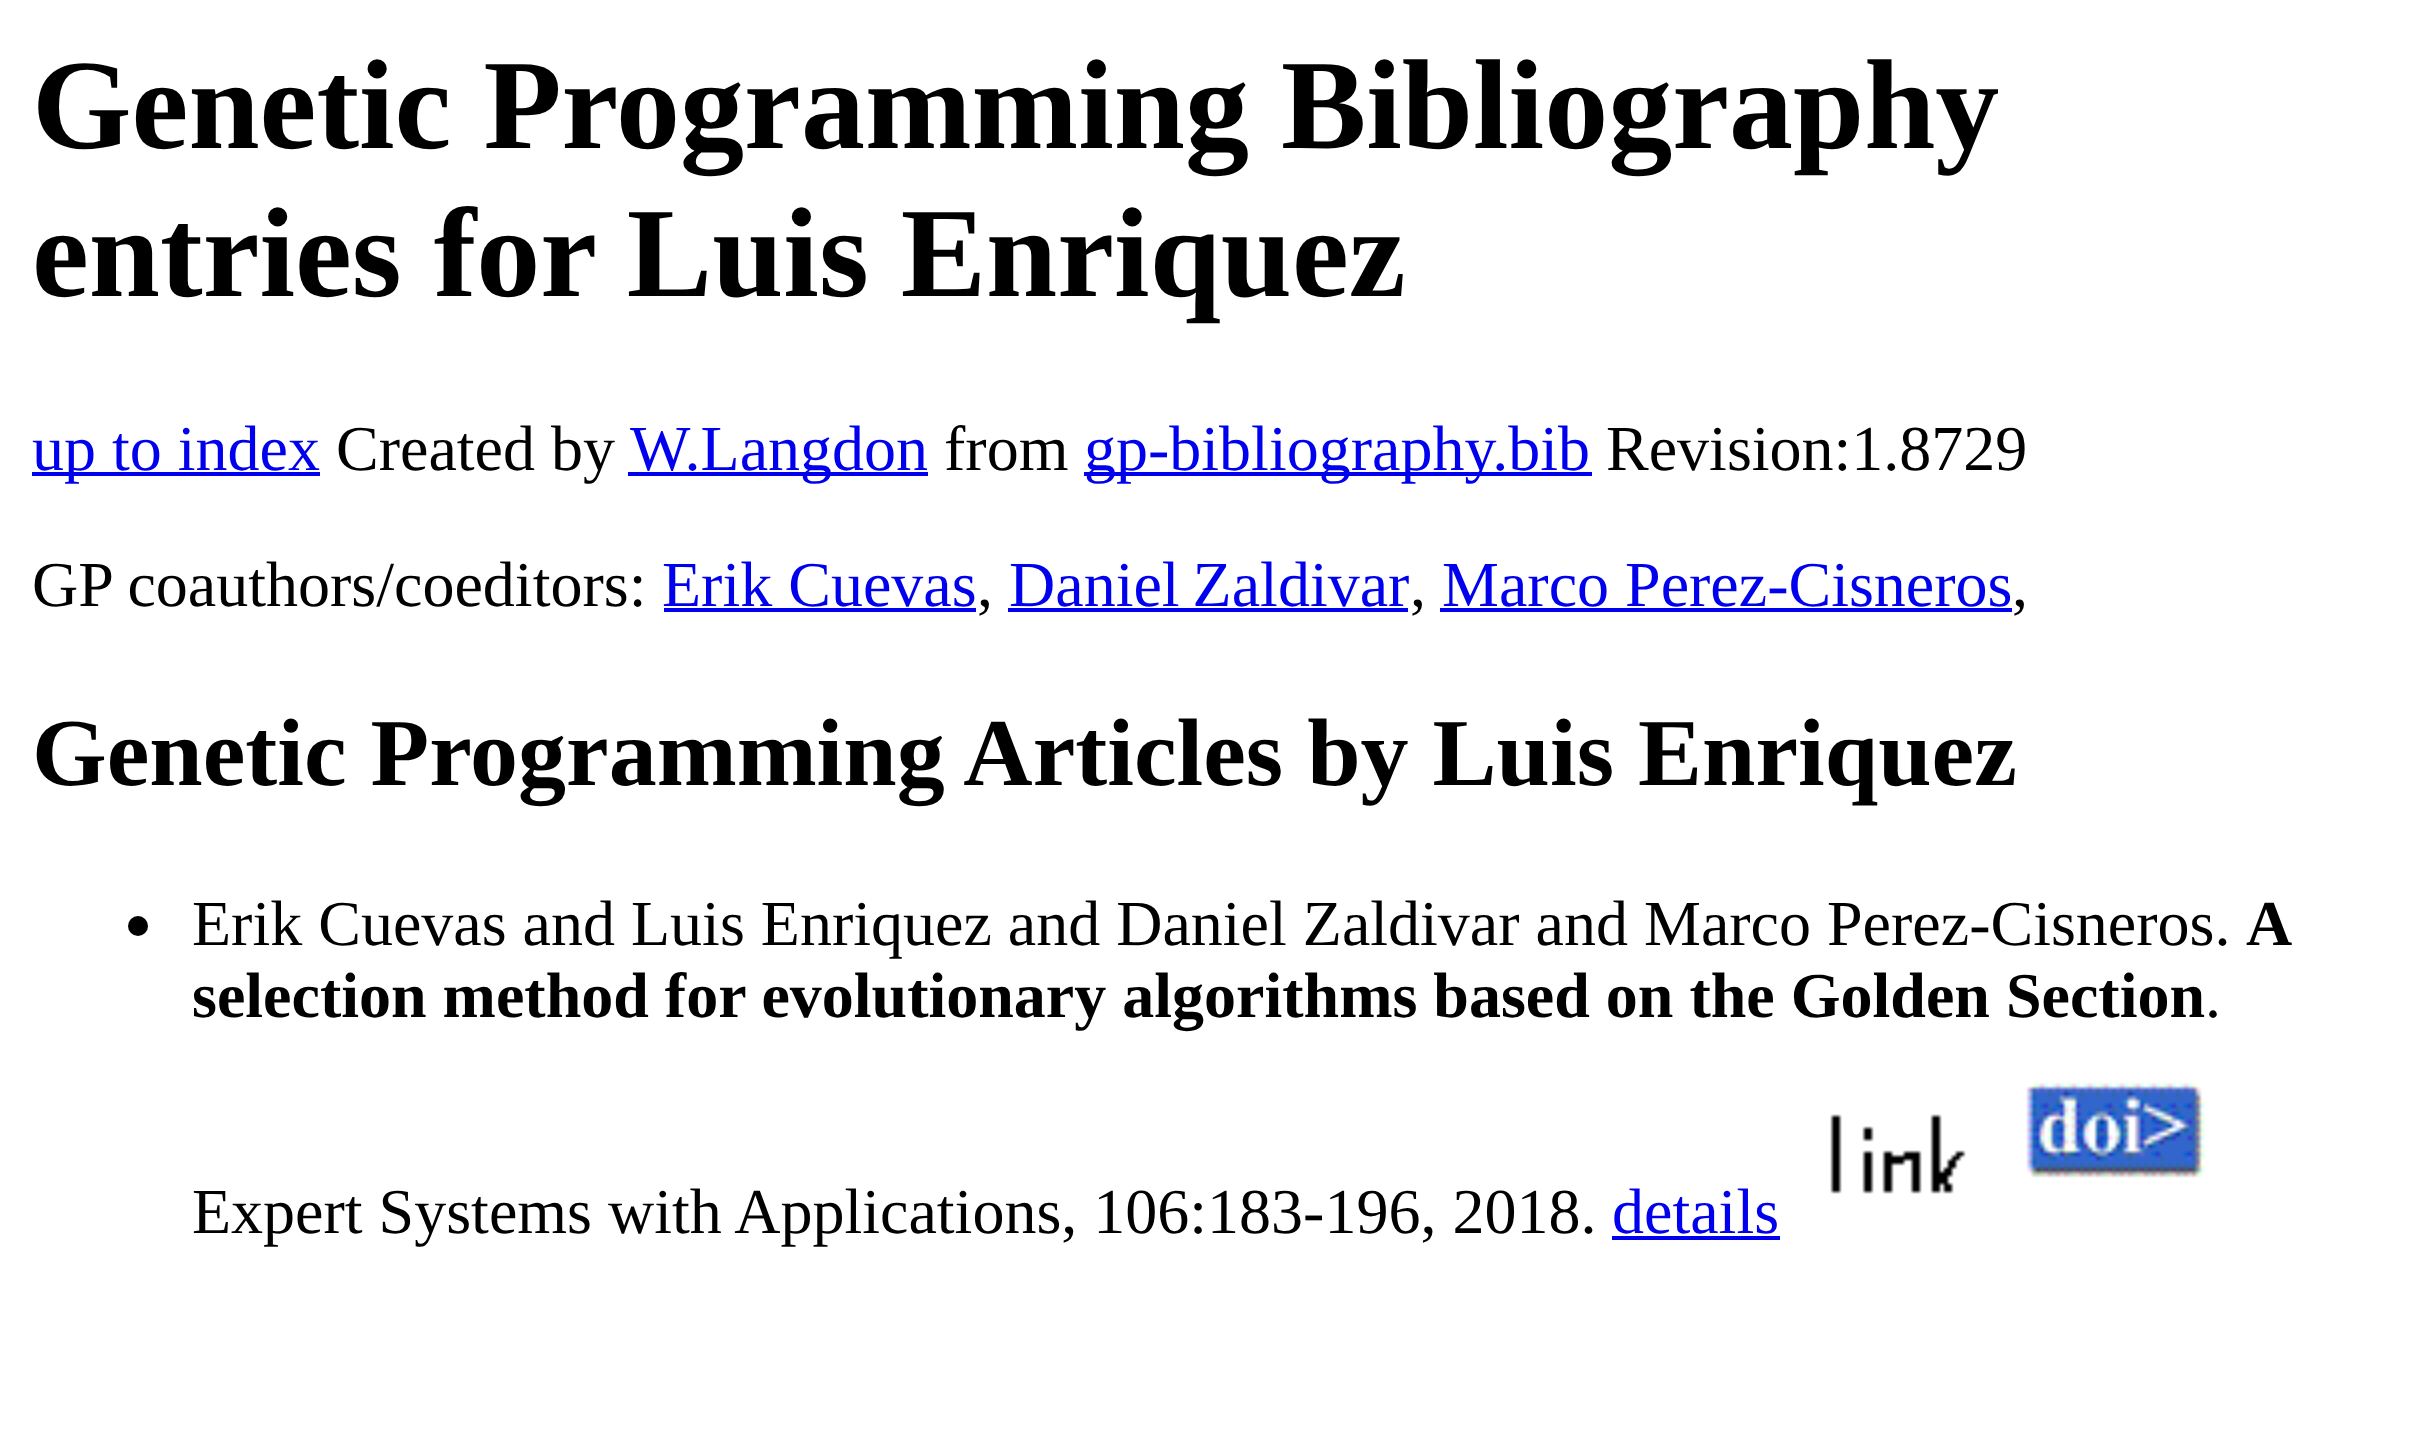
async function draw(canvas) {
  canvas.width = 2414
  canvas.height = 1436
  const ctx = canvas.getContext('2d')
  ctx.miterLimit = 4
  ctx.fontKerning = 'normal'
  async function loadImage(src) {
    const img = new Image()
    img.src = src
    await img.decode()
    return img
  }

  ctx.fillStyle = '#fff'
  ctx.fillRect(0, 0, 2414, 1436)
  ctx.font = 'bold 128px Liberation Serif'
  ctx.fillStyle = '#000'
  ctx.fillText('Genetic Programming Bibliography', 32, 148)
  ctx.fillText('entries for Luis Enriquez', 32, 296)
  ctx.fillStyle = '#00e'
  ctx.fillRect(32, 472, 288, 4)
  ctx.font = '64px Liberation Serif'
  ctx.fillText('up to index', 32, 470)
  ctx.fillStyle = '#000'
  ctx.fillText('Created by', 336, 470)
  ctx.fillStyle = '#00e'
  ctx.fillRect(628, 472, 300, 4)
  ctx.fillText('W.Langdon', 630, 470)
  ctx.fillStyle = '#000'
  ctx.fillText('from', 944, 470)
  ctx.fillStyle = '#00e'
  ctx.fillRect(1084, 472, 508, 4)
  ctx.fillText('gp-bibliography.bib', 1084, 470)
  ctx.fillStyle = '#000'
  ctx.fillText('Revision:1.8729', 1606, 470)
  ctx.fillText('GP coauthors/coeditors:', 32, 606)
  ctx.fillStyle = '#00e'
  ctx.fillText('Erik Cuevas', 662, 606)
  ctx.fillRect(664, 608, 312, 4)
  ctx.fillStyle = '#000'
  ctx.fillText(',', 977, 606)
  ctx.wordSpacing = '-3px'
  ctx.fillStyle = '#00e'
  ctx.fillText('Daniel Zaldivar', 1009, 606)
  ctx.fillRect(1008, 608, 400, 4)
  ctx.wordSpacing = '0px'
  ctx.fillStyle = '#000'
  ctx.fillText(',', 1410, 606)
  ctx.fillStyle = '#00e'
  ctx.fillText('Marco Perez-Cisneros', 1442, 606)
  ctx.fillRect(1440, 608, 572, 4)
  ctx.fillStyle = '#000'
  ctx.fillText(',', 2012, 606)
  ctx.font = 'bold 96px Liberation Serif'
  ctx.fillText('Genetic Programming Articles by Luis Enriquez', 32, 785)
  ctx.beginPath()
  ctx.arc(138, 926, 10, 0, 2 * Math.PI)
  ctx.fill()
  ctx.font = '64px Liberation Serif'
  ctx.fillText('Erik Cuevas and Luis Enriquez and Daniel Zaldivar and Marco Perez-Cisneros.', 192, 945)
  ctx.font = 'bold 64px Liberation Serif'
  ctx.fillText('A', 2246, 945)
  ctx.fillText('selection method for evolutionary algorithms based on the Golden Section', 192, 1017)
  ctx.font = '64px Liberation Serif'
  ctx.fillText('.', 2205, 1017)
  ctx.drawImage(await loadImage('image0.png'), 1830, 1114, 136, 80)
  ctx.drawImage(await loadImage('image1.png'), 2026, 1082, 180, 96)
  ctx.fillText('Expert Systems with Applications, 106:183-196, 2018.', 192, 1233)
  ctx.fillStyle = '#00e'
  ctx.fillText('details', 1612, 1233)
  ctx.fillRect(1612, 1236, 168, 4)
}

draw(document.querySelector('canvas'))
